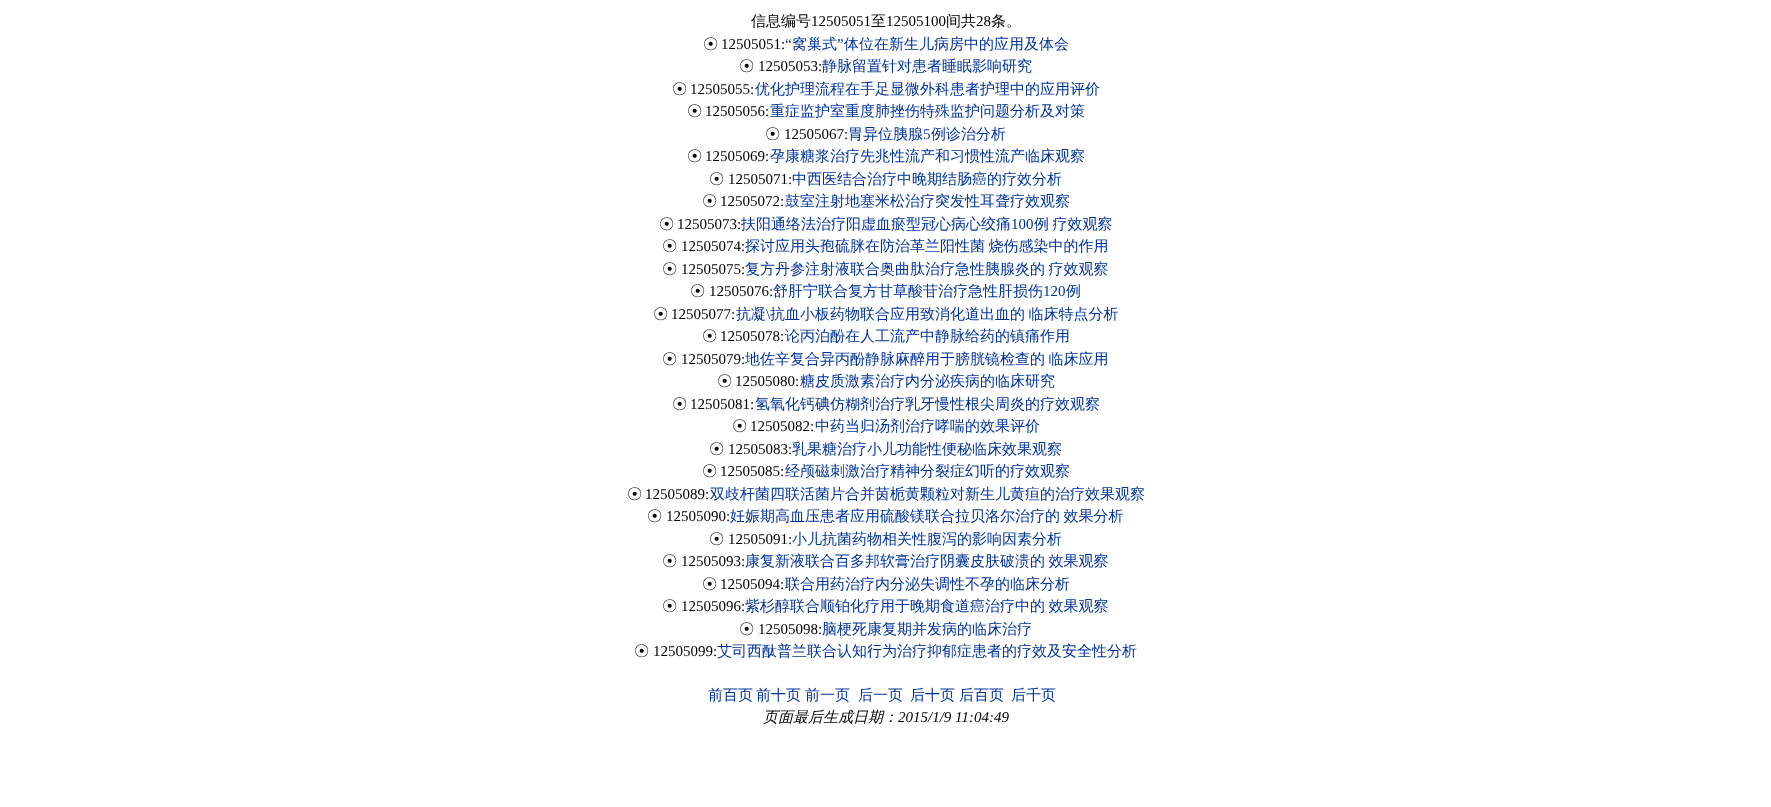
async function draw(canvas) {
  canvas.width = 1771
  canvas.height = 807
  const ctx = canvas.getContext('2d')
  ctx.miterLimit = 4
  ctx.fontKerning = 'normal'

  ctx.fillStyle = '#fff'
  ctx.fillRect(0, 0, 1771, 807)
  ctx.font = '500 15px WenQuanYi Zen Hei'
  ctx.fillStyle = '#000'
  ctx.fillText('信息编号', 751, 26)
  ctx.font = '15px Liberation Serif'
  ctx.fillText('12505051', 811, 26)
  ctx.font = '500 15px WenQuanYi Zen Hei'
  ctx.fillText('至', 871, 26)
  ctx.font = '15px Liberation Serif'
  ctx.fillText('12505100', 886, 26)
  ctx.font = '500 15px WenQuanYi Zen Hei'
  ctx.fillText('间共', 946, 26)
  ctx.font = '15px Liberation Serif'
  ctx.fillText('28', 976, 26)
  ctx.font = '500 15px WenQuanYi Zen Hei'
  ctx.fillText('条。', 991, 26)
  ctx.fillText('☉', 703, 49)
  ctx.font = '15px Liberation Serif'
  ctx.fillText('12505051:', 721, 49)
  ctx.fillStyle = '#039'
  ctx.fillText('“', 785, 49)
  ctx.font = '500 15px WenQuanYi Zen Hei'
  ctx.fillText('窝巢式', 792, 49)
  ctx.font = '15px Liberation Serif'
  ctx.fillText('”', 837, 49)
  ctx.font = '500 15px WenQuanYi Zen Hei'
  ctx.fillText('体位在新生儿病房中的应用及体会', 844, 49)
  ctx.fillStyle = '#000'
  ctx.fillText('☉', 739, 71)
  ctx.font = '15px Liberation Serif'
  ctx.fillText('12505053:', 758, 71)
  ctx.font = '500 15px WenQuanYi Zen Hei'
  ctx.fillStyle = '#039'
  ctx.fillText('静脉留置针对患者睡眠影响研究', 822, 71)
  ctx.fillStyle = '#000'
  ctx.fillText('☉', 672, 94)
  ctx.font = '15px Liberation Serif'
  ctx.fillText('12505055:', 690, 94)
  ctx.font = '500 15px WenQuanYi Zen Hei'
  ctx.fillStyle = '#039'
  ctx.fillText('优化护理流程在手足显微外科患者护理中的应用评价', 755, 94)
  ctx.fillStyle = '#000'
  ctx.fillText('☉', 687, 116)
  ctx.font = '15px Liberation Serif'
  ctx.fillText('12505056:', 705, 116)
  ctx.font = '500 15px WenQuanYi Zen Hei'
  ctx.fillStyle = '#039'
  ctx.fillText('重症监护室重度肺挫伤特殊监护问题分析及对策', 770, 116)
  ctx.fillStyle = '#000'
  ctx.fillText('☉', 765, 139)
  ctx.font = '15px Liberation Serif'
  ctx.fillText('12505067:', 784, 139)
  ctx.font = '500 15px WenQuanYi Zen Hei'
  ctx.fillStyle = '#039'
  ctx.fillText('胃异位胰腺', 848, 139)
  ctx.font = '15px Liberation Serif'
  ctx.fillText('5', 923, 139)
  ctx.font = '500 15px WenQuanYi Zen Hei'
  ctx.fillText('例诊治分析', 931, 139)
  ctx.fillStyle = '#000'
  ctx.fillText('☉', 687, 161)
  ctx.font = '15px Liberation Serif'
  ctx.fillText('12505069:', 705, 161)
  ctx.font = '500 15px WenQuanYi Zen Hei'
  ctx.fillStyle = '#039'
  ctx.fillText('孕康糖浆治疗先兆性流产和习惯性流产临床观察', 770, 161)
  ctx.fillStyle = '#000'
  ctx.fillText('☉', 709, 184)
  ctx.font = '15px Liberation Serif'
  ctx.fillText('12505071:', 728, 184)
  ctx.font = '500 15px WenQuanYi Zen Hei'
  ctx.fillStyle = '#039'
  ctx.fillText('中西医结合治疗中晚期结肠癌的疗效分析', 792, 184)
  ctx.fillStyle = '#000'
  ctx.fillText('☉', 702, 206)
  ctx.font = '15px Liberation Serif'
  ctx.fillText('12505072:', 720, 206)
  ctx.font = '500 15px WenQuanYi Zen Hei'
  ctx.fillStyle = '#039'
  ctx.fillText('鼓室注射地塞米松治疗突发性耳聋疗效观察', 785, 206)
  ctx.fillStyle = '#000'
  ctx.fillText('☉', 659, 229)
  ctx.font = '15px Liberation Serif'
  ctx.fillText('12505073:', 677, 229)
  ctx.font = '500 15px WenQuanYi Zen Hei'
  ctx.fillStyle = '#039'
  ctx.fillText('扶阳通络法治疗阳虚血瘀型冠心病心绞痛', 741, 229)
  ctx.font = '15px Liberation Serif'
  ctx.fillText('100', 1011, 229)
  ctx.wordSpacing = '-1px'
  ctx.font = '500 15px WenQuanYi Zen Hei'
  ctx.fillText('例 疗效观察', 1034, 229)
  ctx.wordSpacing = '0px'
  ctx.fillStyle = '#000'
  ctx.fillText('☉', 662, 251)
  ctx.font = '15px Liberation Serif'
  ctx.fillText('12505074:', 681, 251)
  ctx.wordSpacing = '-1px'
  ctx.font = '500 15px WenQuanYi Zen Hei'
  ctx.fillStyle = '#039'
  ctx.fillText('探讨应用头孢硫脒在防治革兰阳性菌 烧伤感染中的作用', 745, 251)
  ctx.wordSpacing = '0px'
  ctx.fillStyle = '#000'
  ctx.fillText('☉', 662, 274)
  ctx.font = '15px Liberation Serif'
  ctx.fillText('12505075:', 681, 274)
  ctx.wordSpacing = '-1px'
  ctx.font = '500 15px WenQuanYi Zen Hei'
  ctx.fillStyle = '#039'
  ctx.fillText('复方丹参注射液联合奥曲肽治疗急性胰腺炎的 疗效观察', 745, 274)
  ctx.wordSpacing = '0px'
  ctx.fillStyle = '#000'
  ctx.fillText('☉', 690, 296)
  ctx.font = '15px Liberation Serif'
  ctx.fillText('12505076:', 709, 296)
  ctx.font = '500 15px WenQuanYi Zen Hei'
  ctx.fillStyle = '#039'
  ctx.fillText('舒肝宁联合复方甘草酸苷治疗急性肝损伤', 773, 296)
  ctx.font = '15px Liberation Serif'
  ctx.fillText('120', 1043, 296)
  ctx.font = '500 15px WenQuanYi Zen Hei'
  ctx.fillText('例', 1066, 296)
  ctx.fillStyle = '#000'
  ctx.fillText('☉', 653, 319)
  ctx.font = '15px Liberation Serif'
  ctx.fillText('12505077:', 671, 319)
  ctx.font = '500 15px WenQuanYi Zen Hei'
  ctx.fillStyle = '#039'
  ctx.fillText('抗凝', 736, 319)
  ctx.font = '15px Liberation Serif'
  ctx.fillText('\\', 766, 319)
  ctx.wordSpacing = '-1px'
  ctx.font = '500 15px WenQuanYi Zen Hei'
  ctx.fillText('抗血小板药物联合应用致消化道出血的 临床特点分析', 770, 319)
  ctx.wordSpacing = '0px'
  ctx.fillStyle = '#000'
  ctx.fillText('☉', 702, 341)
  ctx.font = '15px Liberation Serif'
  ctx.fillText('12505078:', 720, 341)
  ctx.font = '500 15px WenQuanYi Zen Hei'
  ctx.fillStyle = '#039'
  ctx.fillText('论丙泊酚在人工流产中静脉给药的镇痛作用', 785, 341)
  ctx.fillStyle = '#000'
  ctx.fillText('☉', 662, 364)
  ctx.font = '15px Liberation Serif'
  ctx.fillText('12505079:', 681, 364)
  ctx.wordSpacing = '-1px'
  ctx.font = '500 15px WenQuanYi Zen Hei'
  ctx.fillStyle = '#039'
  ctx.fillText('地佐辛复合异丙酚静脉麻醉用于膀胱镜检查的 临床应用', 745, 364)
  ctx.wordSpacing = '0px'
  ctx.fillStyle = '#000'
  ctx.fillText('☉', 717, 386)
  ctx.font = '15px Liberation Serif'
  ctx.fillText('12505080:', 735, 386)
  ctx.font = '500 15px WenQuanYi Zen Hei'
  ctx.fillStyle = '#039'
  ctx.fillText('糖皮质激素治疗内分泌疾病的临床研究', 800, 386)
  ctx.fillStyle = '#000'
  ctx.fillText('☉', 672, 409)
  ctx.font = '15px Liberation Serif'
  ctx.fillText('12505081:', 690, 409)
  ctx.font = '500 15px WenQuanYi Zen Hei'
  ctx.fillStyle = '#039'
  ctx.fillText('氢氧化钙碘仿糊剂治疗乳牙慢性根尖周炎的疗效观察', 755, 409)
  ctx.fillStyle = '#000'
  ctx.fillText('☉', 732, 431)
  ctx.font = '15px Liberation Serif'
  ctx.fillText('12505082:', 750, 431)
  ctx.font = '500 15px WenQuanYi Zen Hei'
  ctx.fillStyle = '#039'
  ctx.fillText('中药当归汤剂治疗哮喘的效果评价', 815, 431)
  ctx.fillStyle = '#000'
  ctx.fillText('☉', 709, 454)
  ctx.font = '15px Liberation Serif'
  ctx.fillText('12505083:', 728, 454)
  ctx.font = '500 15px WenQuanYi Zen Hei'
  ctx.fillStyle = '#039'
  ctx.fillText('乳果糖治疗小儿功能性便秘临床效果观察', 792, 454)
  ctx.fillStyle = '#000'
  ctx.fillText('☉', 702, 476)
  ctx.font = '15px Liberation Serif'
  ctx.fillText('12505085:', 720, 476)
  ctx.font = '500 15px WenQuanYi Zen Hei'
  ctx.fillStyle = '#039'
  ctx.fillText('经颅磁刺激治疗精神分裂症幻听的疗效观察', 785, 476)
  ctx.fillStyle = '#000'
  ctx.fillText('☉', 627, 499)
  ctx.font = '15px Liberation Serif'
  ctx.fillText('12505089:', 645, 499)
  ctx.font = '500 15px WenQuanYi Zen Hei'
  ctx.fillStyle = '#039'
  ctx.fillText('双歧杆菌四联活菌片合并茵栀黄颗粒对新生儿黄疸的治疗效果观察', 710, 499)
  ctx.fillStyle = '#000'
  ctx.fillText('☉', 647, 521)
  ctx.font = '15px Liberation Serif'
  ctx.fillText('12505090:', 666, 521)
  ctx.wordSpacing = '-1px'
  ctx.font = '500 15px WenQuanYi Zen Hei'
  ctx.fillStyle = '#039'
  ctx.fillText('妊娠期高血压患者应用硫酸镁联合拉贝洛尔治疗的 效果分析', 730, 521)
  ctx.wordSpacing = '0px'
  ctx.fillStyle = '#000'
  ctx.fillText('☉', 709, 544)
  ctx.font = '15px Liberation Serif'
  ctx.fillText('12505091:', 728, 544)
  ctx.font = '500 15px WenQuanYi Zen Hei'
  ctx.fillStyle = '#039'
  ctx.fillText('小儿抗菌药物相关性腹泻的影响因素分析', 792, 544)
  ctx.fillStyle = '#000'
  ctx.fillText('☉', 662, 566)
  ctx.font = '15px Liberation Serif'
  ctx.fillText('12505093:', 681, 566)
  ctx.wordSpacing = '-1px'
  ctx.font = '500 15px WenQuanYi Zen Hei'
  ctx.fillStyle = '#039'
  ctx.fillText('康复新液联合百多邦软膏治疗阴囊皮肤破溃的 效果观察', 745, 566)
  ctx.wordSpacing = '0px'
  ctx.fillStyle = '#000'
  ctx.fillText('☉', 702, 589)
  ctx.font = '15px Liberation Serif'
  ctx.fillText('12505094:', 720, 589)
  ctx.font = '500 15px WenQuanYi Zen Hei'
  ctx.fillStyle = '#039'
  ctx.fillText('联合用药治疗内分泌失调性不孕的临床分析', 785, 589)
  ctx.fillStyle = '#000'
  ctx.fillText('☉', 662, 611)
  ctx.font = '15px Liberation Serif'
  ctx.fillText('12505096:', 681, 611)
  ctx.wordSpacing = '-1px'
  ctx.font = '500 15px WenQuanYi Zen Hei'
  ctx.fillStyle = '#039'
  ctx.fillText('紫杉醇联合顺铂化疗用于晚期食道癌治疗中的 效果观察', 745, 611)
  ctx.wordSpacing = '0px'
  ctx.fillStyle = '#000'
  ctx.fillText('☉', 739, 634)
  ctx.font = '15px Liberation Serif'
  ctx.fillText('12505098:', 758, 634)
  ctx.font = '500 15px WenQuanYi Zen Hei'
  ctx.fillStyle = '#039'
  ctx.fillText('脑梗死康复期并发病的临床治疗', 822, 634)
  ctx.fillStyle = '#000'
  ctx.fillText('☉', 634, 656)
  ctx.font = '15px Liberation Serif'
  ctx.fillText('12505099:', 653, 656)
  ctx.font = '500 15px WenQuanYi Zen Hei'
  ctx.fillStyle = '#039'
  ctx.fillText('艾司西酞普兰联合认知行为治疗抑郁症患者的疗效及安全性分析', 717, 656)
  ctx.fillText('前百页', 708, 700)
  ctx.fillText('前十页', 756, 700)
  ctx.fillText('前一页', 805, 700)
  ctx.fillText('后一页', 858, 700)
  ctx.fillText('后十页', 910, 700)
  ctx.fillText('后百页', 959, 700)
  ctx.fillText('后千页', 1011, 700)
  ctx.font = 'italic 500 15px WenQuanYi Zen Hei'
  ctx.fillStyle = '#000'
  ctx.fillText('页面最后生成日期：', 763, 722)
  ctx.font = 'italic 15px Liberation Serif'
  ctx.fillText('2015/1/9 11:04:49', 898, 722)
}

draw(document.querySelector('canvas'))
